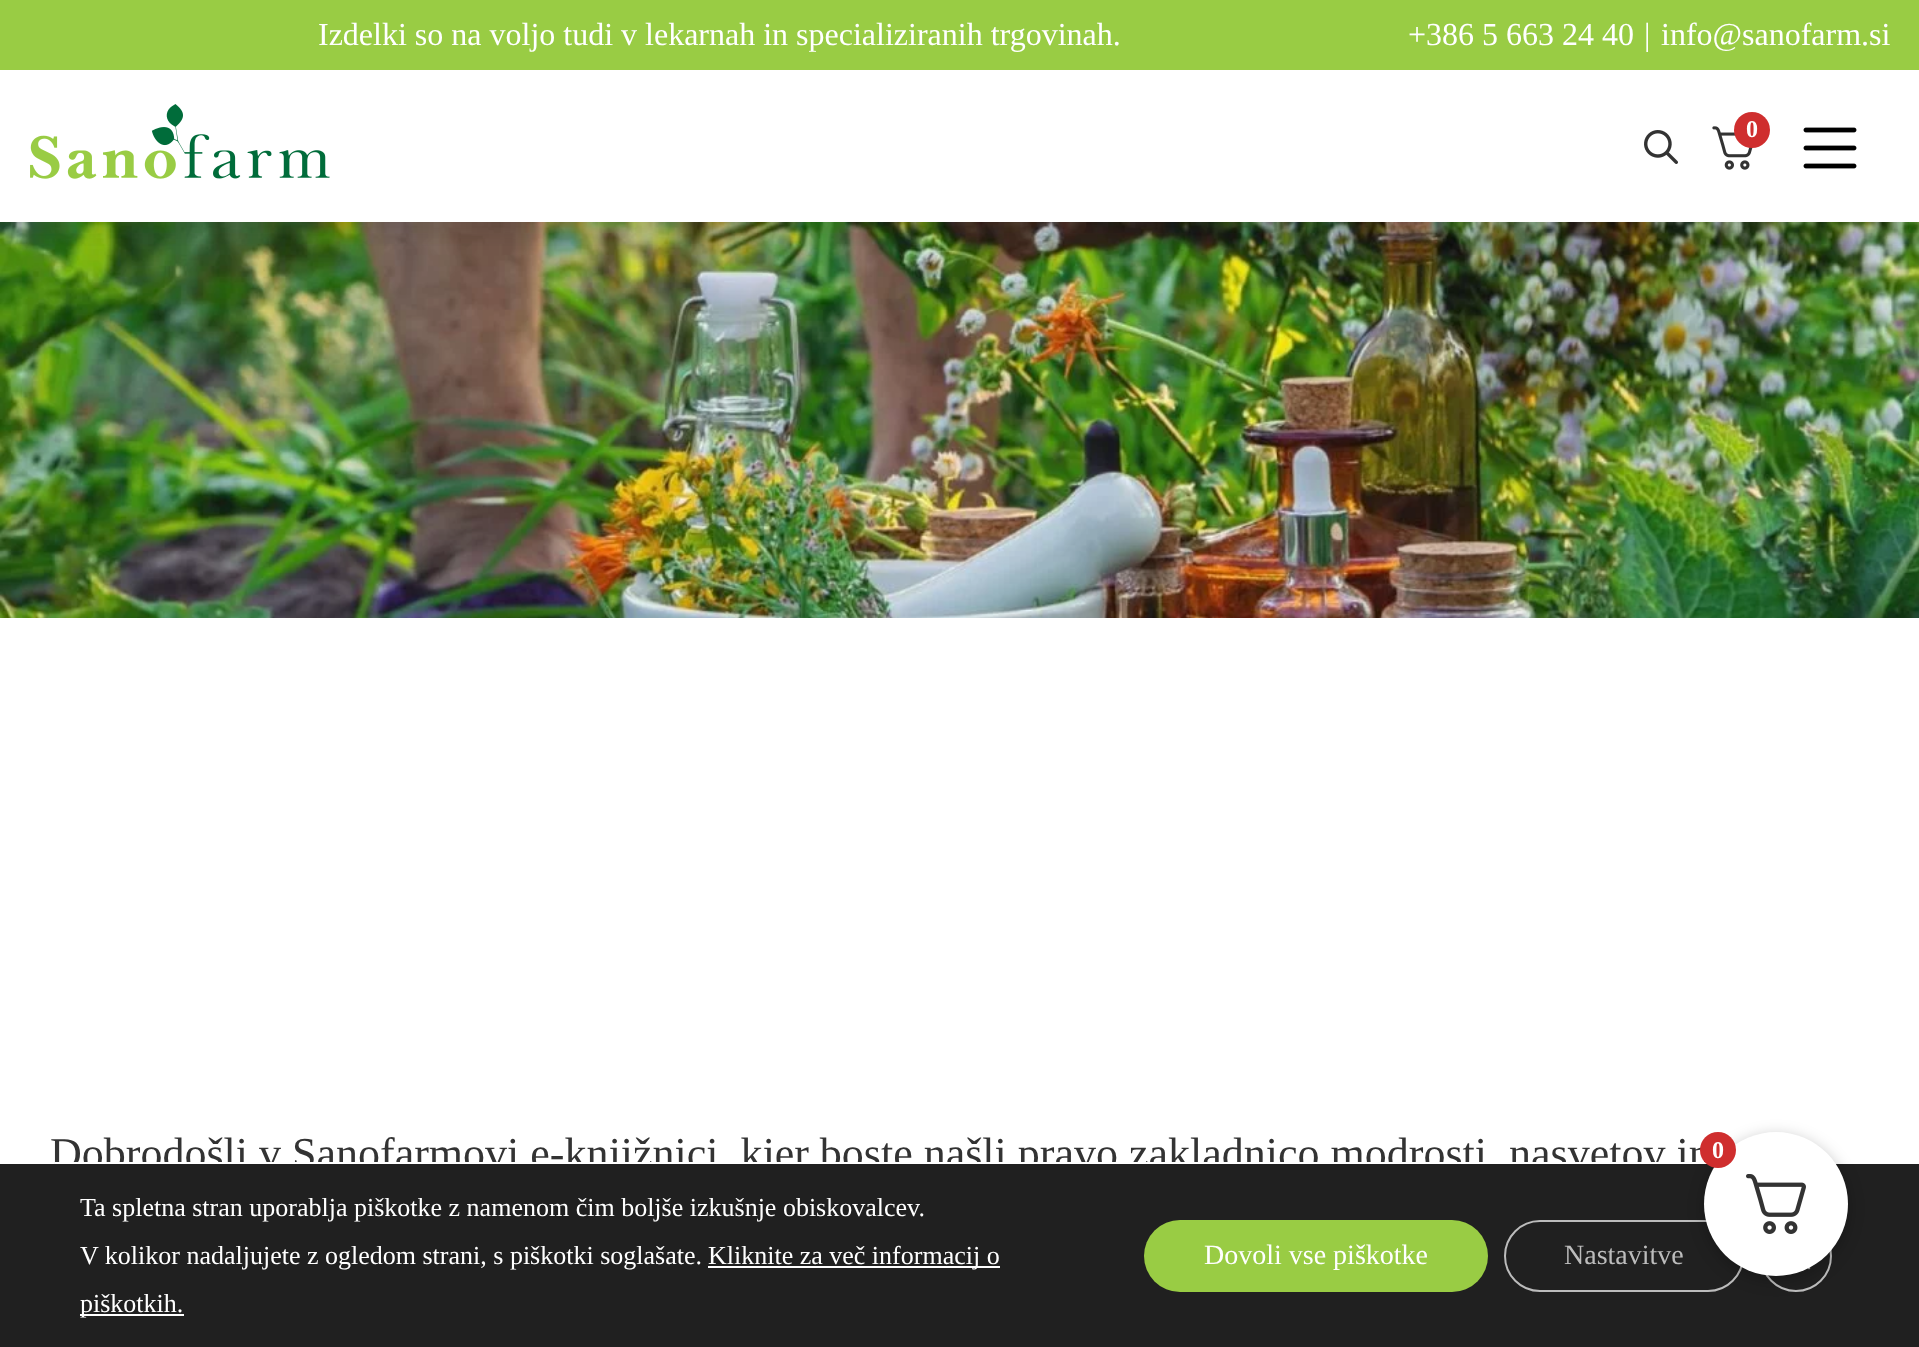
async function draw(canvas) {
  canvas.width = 1919
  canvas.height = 1347
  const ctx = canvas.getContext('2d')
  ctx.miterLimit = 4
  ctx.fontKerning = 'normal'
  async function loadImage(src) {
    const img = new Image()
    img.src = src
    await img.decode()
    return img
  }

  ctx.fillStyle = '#fff'
  ctx.fillRect(0, 0, 1919, 1347)
  ctx.drawImage(await loadImage('image4.png'), 0, 222, 1919, 396)
  ctx.save()
  ctx.beginPath()
  ctx.rect(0, 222, 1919, 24)
  ctx.clip()
  ctx.fillStyle = '#1b191926'
  ctx.filter = 'blur(14px)'
  ctx.beginPath()
  ctx.rect(0, 8, 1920, 222)
  ctx.fill()
  ctx.filter = 'none'
  ctx.restore()
  ctx.fillStyle = '#9c4'
  ctx.fillRect(0, 0, 1919, 70)
  ctx.font = '32px Liberation Serif'
  ctx.fillStyle = '#fff'
  ctx.fillText('Izdelki so na voljo tudi v lekarnah in specializiranih trgovinah.', 318, 45)
  ctx.fillText('+386 5 663 24 40', 1408, 45)
  ctx.fillText('|', 1644, 45)
  ctx.fillText('info@sanofarm.si', 1661, 45)
  ctx.drawImage(await loadImage('image0.png'), 30, 104, 300, 75)
  ctx.drawImage(await loadImage('image1.png'), 1644, 130, 34, 34)
  ctx.drawImage(await loadImage('image2.png'), 1712, 126, 41, 44)
  ctx.fillStyle = '#cf2e2e'
  ctx.beginPath()
  ctx.arc(1752, 130, 18, 0, 2 * Math.PI)
  ctx.fill()
  ctx.font = 'bold 24px Liberation Serif'
  ctx.fillStyle = '#fff'
  ctx.fillText('0', 1746, 137)
  ctx.drawImage(await loadImage('image3.png'), 1803, 127, 54, 42)
  ctx.font = '44px Liberation Serif'
  ctx.fillStyle = '#333'
  ctx.fillText('Dobrodošli v Sanofarmovi e-knjižnici, kjer boste našli pravo zakladnico modrosti, nasvetov in', 50, 1168)
  ctx.fillStyle = '#202020'
  ctx.fillRect(0, 1164, 1919, 183)
  ctx.fillStyle = '#fff'
  ctx.fillRect(55, 1162, 1653, 2)
  ctx.beginPath()
  ctx.roundRect(1505, 1221, 238, 70, 35)
  ctx.strokeStyle = '#bcbcbc'
  ctx.lineWidth = 2
  ctx.stroke()
  ctx.beginPath()
  ctx.arc(1796, 1256, 35, 0, 2 * Math.PI)
  ctx.stroke()
  ctx.fillStyle = '#bcbcbc'
  ctx.beginPath()
  ctx.moveTo(1783.5, 1244)
  ctx.lineTo(1785, 1242.5)
  ctx.lineTo(1810.5, 1268)
  ctx.lineTo(1809, 1269.5)
  ctx.closePath()
  ctx.fill()
  ctx.fillStyle = '#00000040'
  ctx.filter = 'blur(8px)'
  ctx.beginPath()
  ctx.roundRect(1704, 1136, 144, 144, 72)
  ctx.fill()
  ctx.filter = 'none'
  ctx.fillStyle = '#fff'
  ctx.beginPath()
  ctx.arc(1776, 1204, 72, 0, 2 * Math.PI)
  ctx.fill()
  ctx.drawImage(await loadImage('image5.png'), 1746, 1174, 60, 60)
  ctx.fillStyle = '#cf2e2e'
  ctx.beginPath()
  ctx.arc(1718, 1150, 18, 0, 2 * Math.PI)
  ctx.fill()
  ctx.font = 'bold 24px Liberation Serif'
  ctx.fillStyle = '#fff'
  ctx.fillText('0', 1712, 1158)
  ctx.font = '26px Liberation Serif'
  ctx.fillText('Ta spletna stran uporablja piškotke z namenom čim boljše izkušnje obiskovalcev.', 80, 1216)
  ctx.fillText('V kolikor nadaljujete z ogledom strani, s piškotki soglašate.', 80, 1264)
  ctx.fillRect(708, 1266, 292, 2)
  ctx.fillText('Kliknite za več informacij o', 708, 1264)
  ctx.fillRect(80, 1314, 104, 2)
  ctx.fillText('piškotkih.', 80, 1312)
  ctx.fillStyle = '#9c4'
  ctx.beginPath()
  ctx.roundRect(1144, 1220, 344, 72, 36)
  ctx.fill()
  ctx.font = '28px Liberation Serif'
  ctx.fillStyle = '#fff'
  ctx.fillText('Dovoli vse piškotke', 1204, 1264)
  ctx.fillStyle = '#bcbcbc'
  ctx.fillText('Nastavitve', 1564, 1264)
}

draw(document.querySelector('canvas'))
